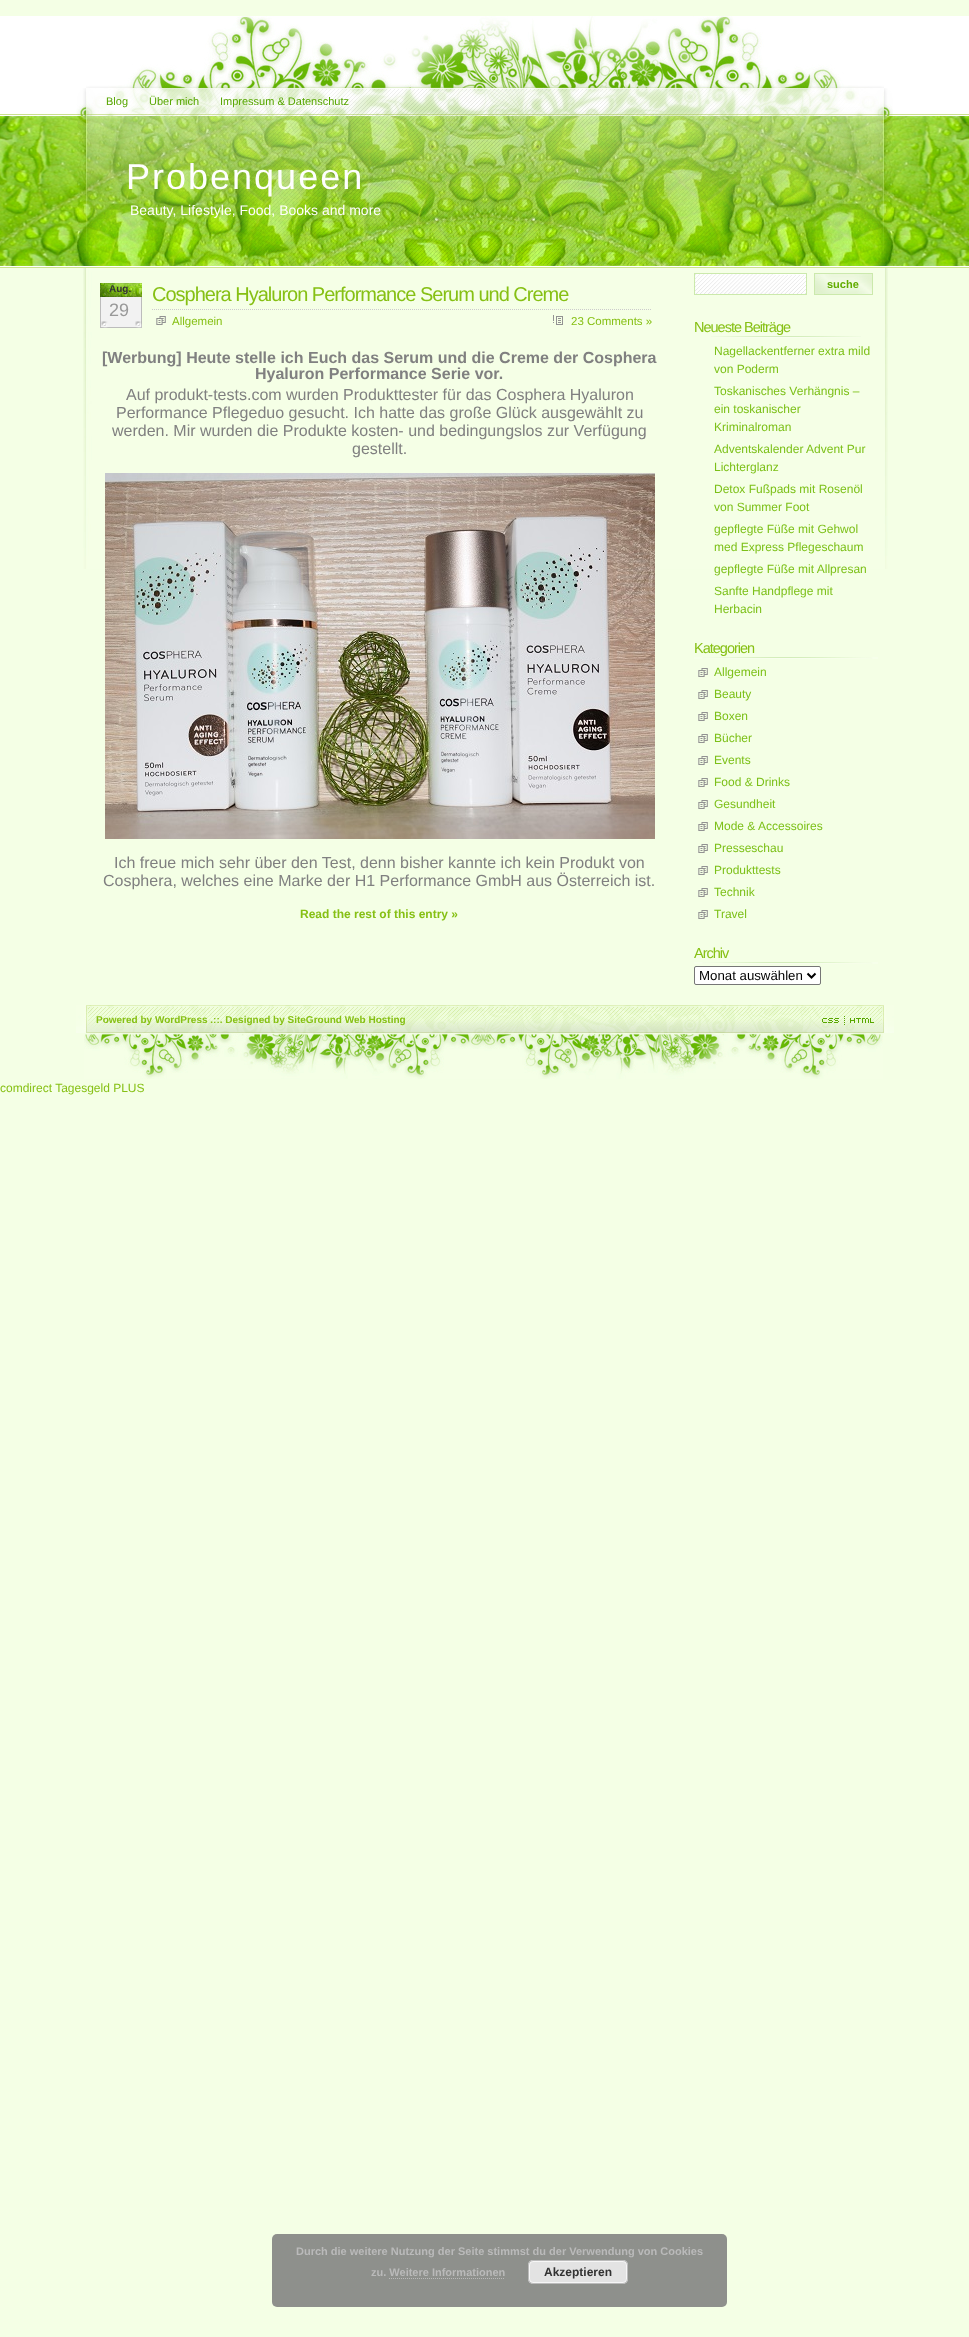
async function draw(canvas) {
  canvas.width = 969
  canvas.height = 2337
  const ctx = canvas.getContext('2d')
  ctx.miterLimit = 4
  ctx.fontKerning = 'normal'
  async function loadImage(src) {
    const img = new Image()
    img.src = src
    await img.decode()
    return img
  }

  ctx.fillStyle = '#f4ffe5'
  ctx.fillRect(0, 0, 969, 2337)
  ctx.fillStyle = '#fff'
  ctx.fillRect(0, 16, 969, 98)
  ctx.drawImage(await loadImage('image0.png'), 0, 114, 969, 154)
  ctx.drawImage(await loadImage('image1.png'), 86, 16, 798, 72)
  ctx.drawImage(await loadImage('image2.png'), 76, 88, 817, 28)
  ctx.font = '11px Liberation Sans'
  ctx.fillStyle = '#57a600'
  ctx.fillText('Blog', 106, 105)
  ctx.fillText('Über mich', 149, 105)
  ctx.fillText('Impressum & Datenschutz', 220, 105)
  ctx.drawImage(await loadImage('image3.png'), 76, 116, 818, 150)
  ctx.letterSpacing = '2px'
  ctx.font = '36px Liberation Sans'
  ctx.fillStyle = '#fefefe'
  ctx.fillText('Probenqueen', 126, 189)
  ctx.letterSpacing = '0px'
  ctx.font = '14px Liberation Sans'
  ctx.fillText('Beauty, Lifestyle, Food, Books and more', 130, 215)
  ctx.drawImage(await loadImage('image4.png'), 83, 268, 805, 301)
  ctx.drawImage(await loadImage('image5.png'), 100, 283, 42, 45)
  ctx.font = 'bold 10px Liberation Sans'
  ctx.fillStyle = '#333'
  ctx.fillText('Aug.', 109, 292)
  ctx.font = '18px Liberation Sans'
  ctx.fillStyle = '#999'
  ctx.fillText('29', 109, 316)
  ctx.beginPath()
  ctx.moveTo(152, 309.5)
  ctx.lineTo(652, 309.5)
  ctx.strokeStyle = '#ccc'
  ctx.setLineDash([1, 1])
  ctx.stroke()
  ctx.letterSpacing = '-1px'
  ctx.font = '20px Liberation Sans'
  ctx.fillStyle = '#86c014'
  ctx.fillText('Cosphera Hyaluron Performance Serum und Creme', 152, 301)
  ctx.drawImage(await loadImage('image6.png'), 156, 316, 10, 9)
  ctx.letterSpacing = '0px'
  ctx.font = '11.5px Liberation Sans'
  ctx.fillText('Allgemein', 172, 325)
  ctx.drawImage(await loadImage('image7.png'), 553, 315, 10, 10)
  ctx.fillText('23 Comments »', 571, 325)
  ctx.font = 'bold 16px Liberation Sans'
  ctx.fillStyle = '#808080'
  ctx.fillText('[Werbung] Heute stelle ich Euch das Serum und die Creme der Cosphera', 102, 363)
  ctx.fillText('Hyaluron Performance Serie vor.', 255, 379)
  ctx.font = '16px Liberation Sans'
  ctx.fillText('Auf produkt-tests.com wurden Produkttester für das Cosphera Hyaluron', 126, 400)
  ctx.fillText('Performance Pflegeduo gesucht. Ich hatte das große Glück ausgewählt zu', 116, 418)
  ctx.fillText('werden. Mir wurden die Produkte kosten- und bedingungslos zur Verfügung', 112, 436)
  ctx.fillText('gestellt.', 352, 454)
  ctx.drawImage(await loadImage('image8.png'), 105, 473, 550, 366)
  ctx.fillText('Ich freue mich sehr über den Test, denn bisher kannte ich kein Produkt von', 114, 868)
  ctx.fillText('Cosphera, welches eine Marke der H1 Performance GmbH aus Österreich ist.', 103, 886)
  ctx.font = 'bold 12px Liberation Sans'
  ctx.fillStyle = '#86c014'
  ctx.fillText('Read the rest of this entry »', 300, 918)
  ctx.drawImage(await loadImage('image9.png'), 694, 273, 113, 22)
  ctx.drawImage(await loadImage('image10.png'), 814, 273, 59, 22)
  ctx.font = 'bold 11px Liberation Sans'
  ctx.fillStyle = '#62ac00'
  ctx.fillText('suche', 827, 288)
  ctx.drawImage(await loadImage('image11.png'), 711, 336, 150, 2)
  ctx.letterSpacing = '-1px'
  ctx.font = '14.5px Liberation Sans'
  ctx.fillStyle = '#86c014'
  ctx.fillText('Neueste Beiträge', 694, 332)
  ctx.letterSpacing = '0px'
  ctx.font = '12px Liberation Sans'
  ctx.fillStyle = '#7cc018'
  ctx.fillText('Nagellackentferner extra mild', 714, 355)
  ctx.fillText('von Poderm', 714, 373)
  ctx.fillText('Toskanisches Verhängnis –', 714, 395)
  ctx.fillText('ein toskanischer', 714, 413)
  ctx.fillText('Kriminalroman', 714, 431)
  ctx.fillText('Adventskalender Advent Pur', 714, 453)
  ctx.fillText('Lichterglanz', 714, 471)
  ctx.fillText('Detox Fußpads mit Rosenöl', 714, 493)
  ctx.fillText('von Summer Foot', 714, 511)
  ctx.fillText('gepflegte Füße mit Gehwol', 714, 533)
  ctx.fillText('med Express Pflegeschaum', 714, 551)
  ctx.fillText('gepflegte Füße mit Allpresan', 714, 573)
  ctx.fillText('Sanfte Handpflege mit', 714, 595)
  ctx.fillText('Herbacin', 714, 613)
  ctx.drawImage(await loadImage('image12.png'), 694, 657, 184, 2)
  ctx.letterSpacing = '-1px'
  ctx.font = '14.5px Liberation Sans'
  ctx.fillStyle = '#86c014'
  ctx.fillText('Kategorien', 694, 653)
  ctx.drawImage(await loadImage('image13.png'), 698, 668, 10, 9)
  ctx.letterSpacing = '0px'
  ctx.font = '12px Liberation Sans'
  ctx.fillStyle = '#7cc018'
  ctx.fillText('Allgemein', 714, 676)
  ctx.drawImage(await loadImage('image13.png'), 698, 690, 10, 9)
  ctx.fillText('Beauty', 714, 698)
  ctx.drawImage(await loadImage('image13.png'), 698, 712, 10, 9)
  ctx.fillText('Boxen', 714, 720)
  ctx.drawImage(await loadImage('image13.png'), 698, 734, 10, 9)
  ctx.fillText('Bücher', 714, 742)
  ctx.drawImage(await loadImage('image13.png'), 698, 756, 10, 9)
  ctx.fillText('Events', 714, 764)
  ctx.drawImage(await loadImage('image13.png'), 698, 778, 10, 9)
  ctx.fillText('Food & Drinks', 714, 786)
  ctx.drawImage(await loadImage('image13.png'), 698, 800, 10, 9)
  ctx.fillText('Gesundheit', 714, 808)
  ctx.drawImage(await loadImage('image13.png'), 698, 822, 10, 9)
  ctx.fillText('Mode & Accessoires', 714, 830)
  ctx.drawImage(await loadImage('image13.png'), 698, 844, 10, 9)
  ctx.fillText('Presseschau', 714, 852)
  ctx.drawImage(await loadImage('image13.png'), 698, 866, 10, 9)
  ctx.fillText('Produkttests', 714, 874)
  ctx.drawImage(await loadImage('image13.png'), 698, 888, 10, 9)
  ctx.fillText('Technik', 714, 896)
  ctx.drawImage(await loadImage('image13.png'), 698, 910, 10, 9)
  ctx.fillText('Travel', 714, 918)
  ctx.drawImage(await loadImage('image12.png'), 694, 962, 184, 2)
  ctx.letterSpacing = '-1px'
  ctx.font = '14.5px Liberation Sans'
  ctx.fillStyle = '#86c014'
  ctx.fillText('Archiv', 694, 958)
  ctx.fillStyle = '#fff'
  ctx.beginPath()
  ctx.roundRect(694.5, 966.5, 126, 18, 1.5)
  ctx.fill()
  ctx.strokeStyle = '#767676'
  ctx.setLineDash([])
  ctx.stroke()
  ctx.beginPath()
  ctx.moveTo(807.5, 973.5)
  ctx.lineTo(811.5, 977.5)
  ctx.lineTo(815.5, 973.5)
  ctx.strokeStyle = '#000'
  ctx.lineWidth = 2
  ctx.stroke()
  ctx.letterSpacing = '0px'
  ctx.font = '13.25px Liberation Sans'
  ctx.fillStyle = '#000'
  ctx.fillText('Monat auswählen', 699, 980)
  ctx.drawImage(await loadImage('image14.png'), 76, 1005, 818, 28)
  ctx.font = 'bold 10px Liberation Sans'
  ctx.fillStyle = '#86c014'
  ctx.fillText('Powered by WordPress .::. Designed by SiteGround Web Hosting', 96, 1023)
  ctx.drawImage(await loadImage('image15.png'), 822, 1018, 17, 5)
  ctx.drawImage(await loadImage('image16.png'), 844, 1016, 1, 9)
  ctx.drawImage(await loadImage('image17.png'), 850, 1018, 24, 5)
  ctx.drawImage(await loadImage('image18.png'), 84, 1033, 799, 46)
  ctx.font = '12px Liberation Sans'
  ctx.fillText('comdirect Tagesgeld PLUS', 0, 1092)
  ctx.fillStyle = '#8e908c'
  ctx.beginPath()
  ctx.roundRect(272, 2234, 455, 73, 5)
  ctx.fill()
  ctx.font = 'bold 11px Liberation Sans'
  ctx.fillStyle = '#bababa'
  ctx.fillText('Durch die weitere Nutzung der Seite stimmst du der Verwendung von Cookies', 296, 2255)
  ctx.fillText('zu. Weitere Informationen', 371, 2276)
  ctx.fillStyle = '#e3e3e3'
  ctx.beginPath()
  ctx.roundRect(528, 2260, 100, 24, 5)
  ctx.fill()
  ctx.beginPath()
  ctx.roundRect(529.5, 2261.5, 97, 21, 3.5)
  ctx.strokeStyle = '#f6f6f6'
  ctx.lineWidth = 1
  ctx.stroke()
  ctx.beginPath()
  ctx.roundRect(528.5, 2260.5, 99, 23, 4.5)
  ctx.strokeStyle = '#bbb'
  ctx.stroke()
  ctx.font = 'bold 12px Liberation Sans'
  ctx.fillStyle = '#333'
  ctx.fillText('Akzeptieren', 544, 2276)
  ctx.beginPath()
  ctx.moveTo(389, 2278.5)
  ctx.lineTo(505, 2278.5)
  ctx.strokeStyle = '#bababa'
  ctx.setLineDash([1, 1])
  ctx.stroke()
}

draw(document.querySelector('canvas'))
